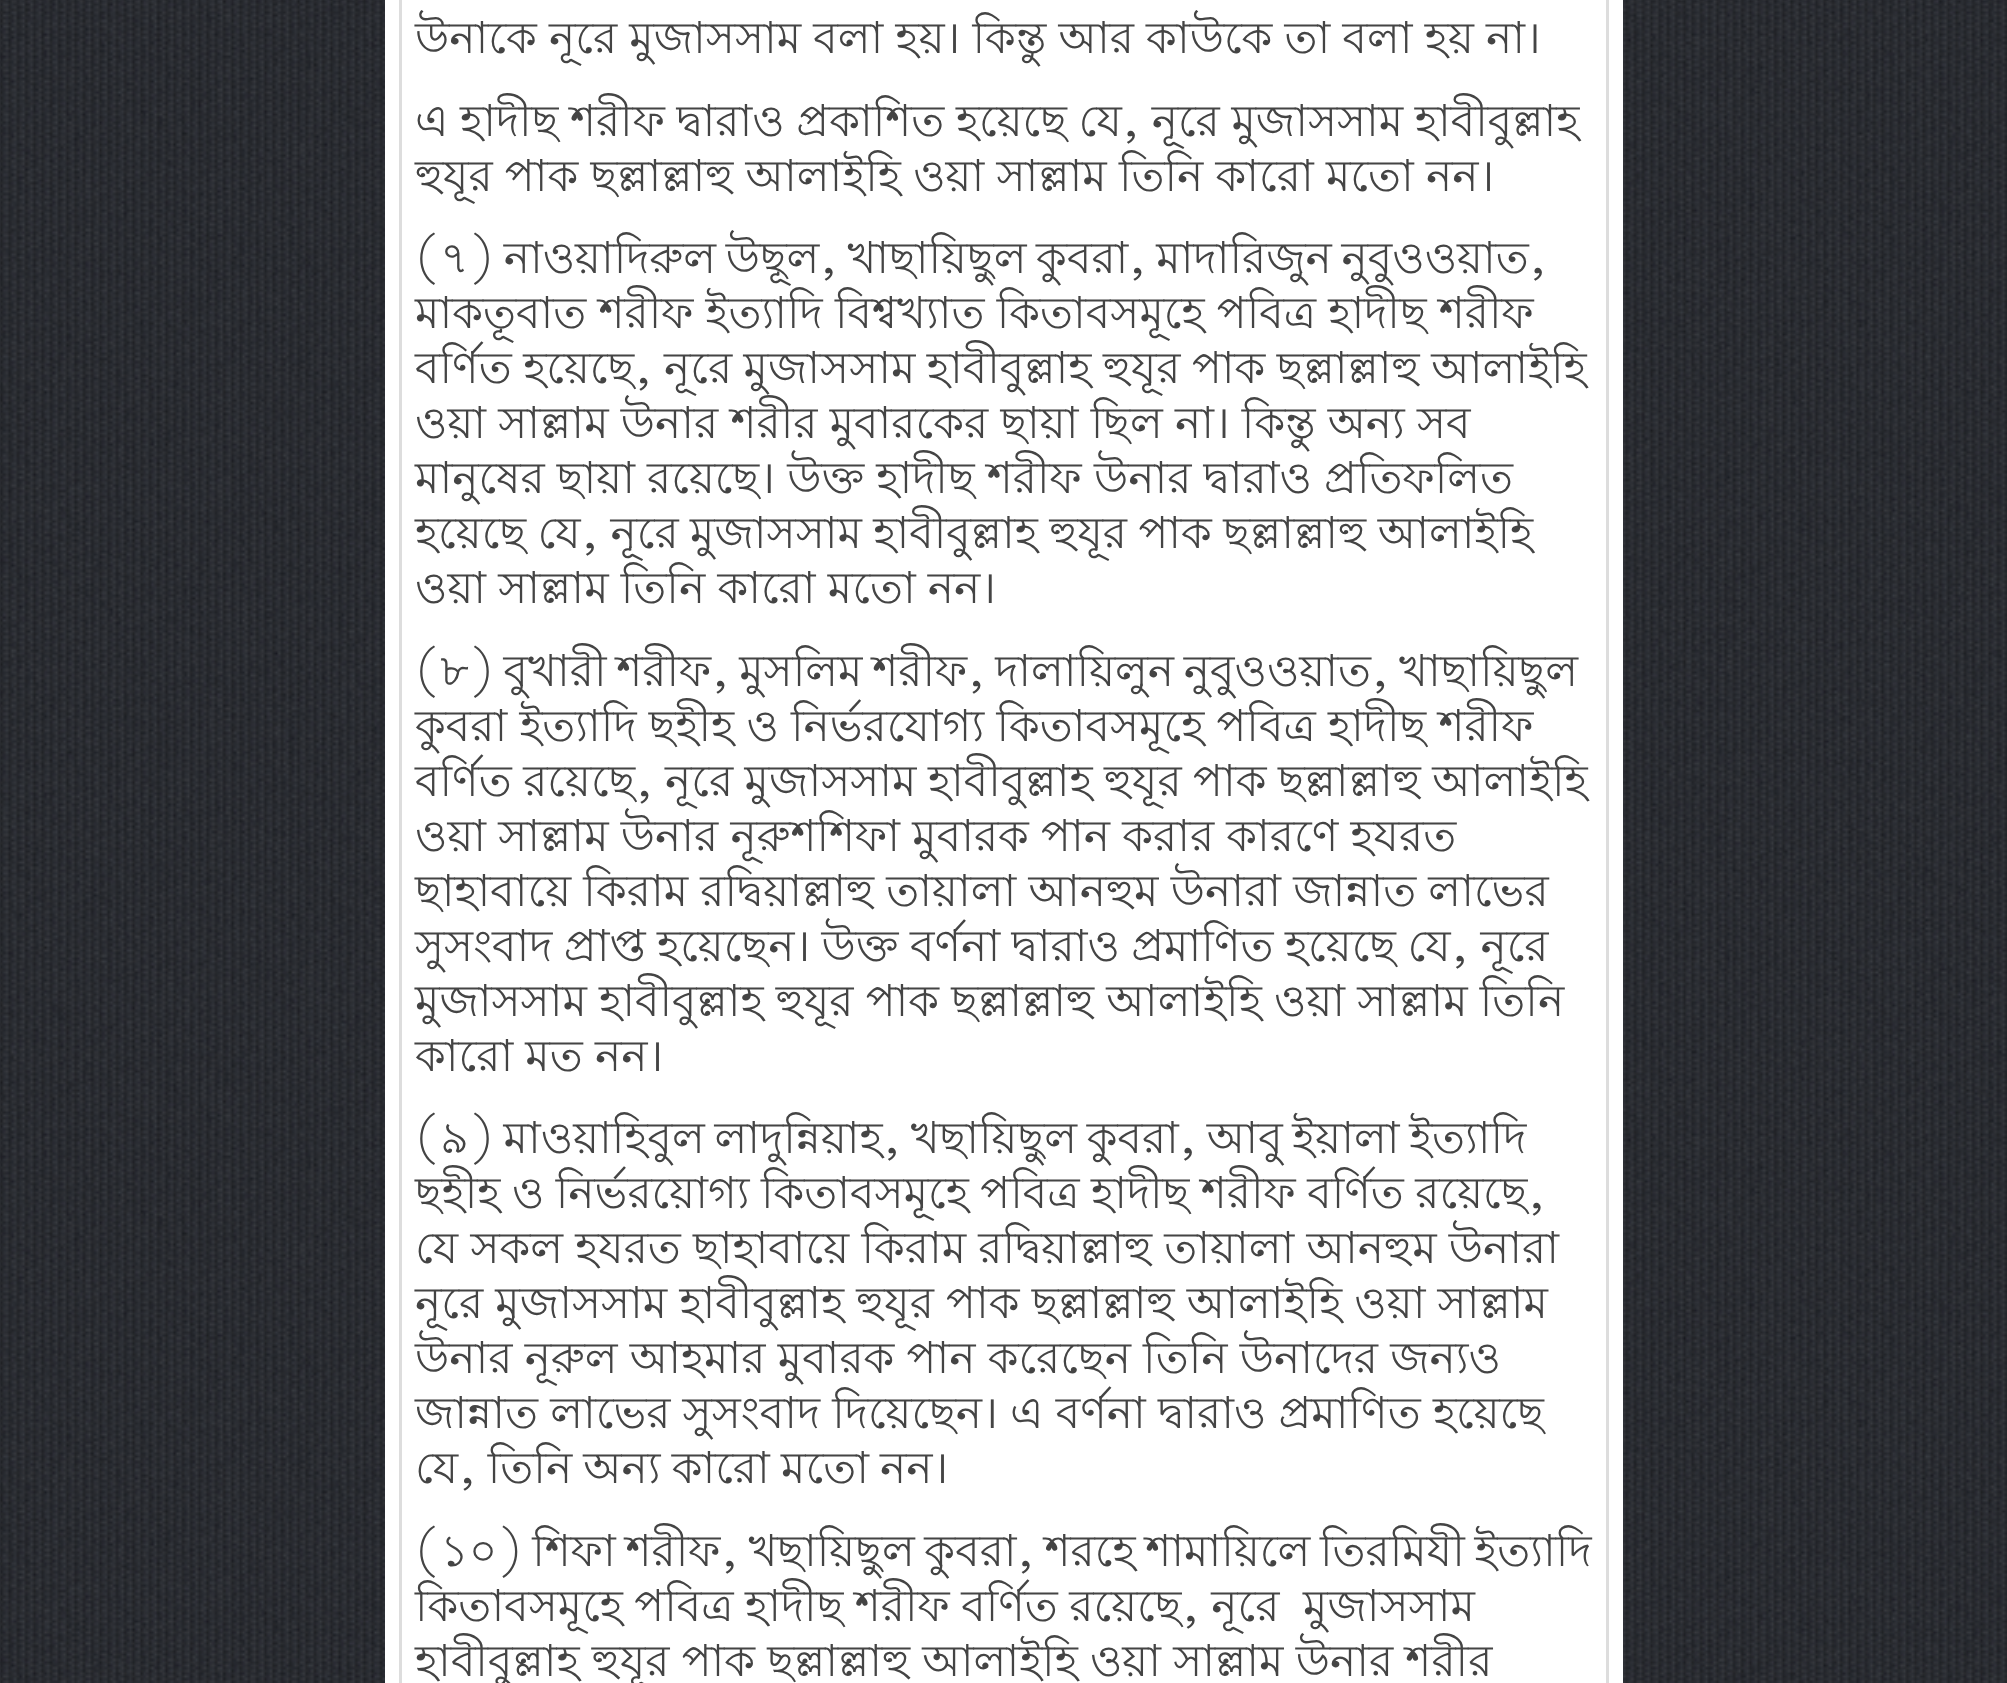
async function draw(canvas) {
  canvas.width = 2007
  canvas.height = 1683
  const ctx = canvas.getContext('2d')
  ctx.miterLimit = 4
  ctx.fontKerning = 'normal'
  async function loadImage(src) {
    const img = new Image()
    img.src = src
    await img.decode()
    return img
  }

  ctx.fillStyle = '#fff'
  ctx.fillRect(0, 0, 2007, 1683)
  ctx.drawImage(await loadImage('image0.png'), 0, 0, 2007, 1683)
  ctx.fillRect(385, 0, 1238, 1683)
  ctx.strokeStyle = '#ddd'
  ctx.lineWidth = 3
  ctx.strokeRect(400.5, -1.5, 1207, 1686)
  ctx.font = '44px Lohit Bengali'
  ctx.fillStyle = '#444'
  ctx.fillText('উনাকে নূরে মুজাসসাম বলা হয়। কিন্তু আর কাউকে তা বলা হয় না।', 415, 53)
  ctx.wordSpacing = '-0.6px'
  ctx.fillText('এ হাদীছ শরীফ দ্বারাও প্রকাশিত হয়েছে যে, নূরে মুজাসসাম হাবীবুল্লাহ', 415, 136)
  ctx.wordSpacing = '0px'
  ctx.fillText('হুযূর পাক ছল্লাল্লাহু আলাইহি ওয়া সাল্লাম তিনি কারো মতো নন।', 415, 191)
  ctx.wordSpacing = '-2.5px'
  ctx.fillText('(৭) নাওয়াদিরুল উছূল, খাছায়িছুল কুবরা, মাদারিজুন নুবুওওয়াত,', 415, 273)
  ctx.wordSpacing = '0px'
  ctx.fillText('মাকতূবাত শরীফ ইত্যাদি বিশ্বখ্যাত কিতাবসমূহে পবিত্র হাদীছ শরীফ', 415, 328)
  ctx.wordSpacing = '-0.75px'
  ctx.fillText('বর্ণিত হয়েছে, নূরে মুজাসসাম হাবীবুল্লাহ হুযূর পাক ছল্লাল্লাহু আলাইহি', 415, 383)
  ctx.wordSpacing = '0px'
  ctx.fillText('ওয়া সাল্লাম উনার শরীর মুবারকের ছায়া ছিল না। কিন্তু অন্য সব', 415, 438)
  ctx.fillText('মানুষের ছায়া রয়েছে। উক্ত হাদীছ শরীফ উনার দ্বারাও প্রতিফলিত', 415, 493)
  ctx.wordSpacing = '-0.75px'
  ctx.fillText('হয়েছে যে, নূরে মুজাসসাম হাবীবুল্লাহ হুযূর পাক ছল্লাল্লাহু আলাইহি', 415, 548)
  ctx.wordSpacing = '0px'
  ctx.fillText('ওয়া সাল্লাম তিনি কারো মতো নন।', 415, 603)
  ctx.wordSpacing = '-2.5px'
  ctx.fillText('(৮) বুখারী শরীফ, মুসলিম শরীফ, দালায়িলুন নুবুওওয়াত, খাছায়িছুল', 415, 686)
  ctx.save()
  ctx.beginPath()
  ctx.rect(402, 0, 1204, 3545)
  ctx.clip()
  ctx.wordSpacing = '0px'
  ctx.fillText('কুবরা ইত্যাদি ছহীহ ও নির্ভরযোগ্য কিতাবসমূহে পবিত্র হাদীছ শরীফ', 415, 741)
  ctx.restore()
  ctx.wordSpacing = '-0.75px'
  ctx.fillText('বর্ণিত রয়েছে, নূরে মুজাসসাম হাবীবুল্লাহ হুযূর পাক ছল্লাল্লাহু আলাইহি', 415, 796)
  ctx.wordSpacing = '0px'
  ctx.fillText('ওয়া সাল্লাম উনার নূরুশশিফা মুবারক পান করার কারণে হযরত', 415, 851)
  ctx.fillText('ছাহাবায়ে কিরাম রদ্বিয়াল্লাহু তায়ালা আনহুম উনারা জান্নাত লাভের', 415, 906)
  ctx.save()
  ctx.beginPath()
  ctx.rect(402, 0, 1204, 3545)
  ctx.clip()
  ctx.wordSpacing = '-0.75px'
  ctx.fillText('সুসংবাদ প্রাপ্ত হয়েছেন। উক্ত বর্ণনা দ্বারাও প্রমাণিত হয়েছে যে, নূরে', 415, 961)
  ctx.wordSpacing = '0px'
  ctx.fillText('মুজাসসাম হাবীবুল্লাহ হুযূর পাক ছল্লাল্লাহু আলাইহি ওয়া সাল্লাম তিনি', 415, 1016)
  ctx.restore()
  ctx.fillText('কারো মত নন।', 415, 1071)
  ctx.wordSpacing = '-2.5px'
  ctx.fillText('(৯) মাওয়াহিবুল লাদুন্নিয়াহ, খছায়িছুল কুবরা, আবু ইয়ালা ইত্যাদি', 415, 1153)
  ctx.wordSpacing = '-0.75px'
  ctx.fillText('ছহীহ ও নির্ভরয়োগ্য কিতাবসমূহে পবিত্র হাদীছ শরীফ বর্ণিত রয়েছে,', 415, 1208)
  ctx.wordSpacing = '0px'
  ctx.fillText('যে সকল হযরত ছাহাবায়ে কিরাম রদ্বিয়াল্লাহু তায়ালা আনহুম উনারা', 415, 1263)
  ctx.save()
  ctx.beginPath()
  ctx.rect(402, 0, 1204, 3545)
  ctx.clip()
  ctx.fillText('নূরে মুজাসসাম হাবীবুল্লাহ হুযূর পাক ছল্লাল্লাহু আলাইহি ওয়া সাল্লাম', 415, 1318)
  ctx.restore()
  ctx.fillText('উনার নূরুল আহমার মুবারক পান করেছেন তিনি উনাদের জন্যও', 415, 1373)
  ctx.fillText('জান্নাত লাভের সুসংবাদ দিয়েছেন। এ বর্ণনা দ্বারাও প্রমাণিত হয়েছে', 415, 1428)
  ctx.wordSpacing = '-1px'
  ctx.fillText('যে, তিনি অন্য কারো মতো নন।', 415, 1483)
  ctx.wordSpacing = '-2.5px'
  ctx.fillText('(১০) শিফা শরীফ, খছায়িছুল কুবরা, শরহে শামায়িলে তিরমিযী ইত্যাদি', 415, 1566)
  ctx.wordSpacing = '-0.75px'
  ctx.fillText('কিতাবসমূহে পবিত্র হাদীছ শরীফ বর্ণিত রয়েছে, নূরে', 415, 1621)
  ctx.wordSpacing = '0px'
  ctx.fillText('মুজাসসাম', 1303, 1621)
  ctx.fillText('হাবীবুল্লাহ হুযূর পাক ছল্লাল্লাহু আলাইহি ওয়া সাল্লাম উনার শরীর', 415, 1676)
}

draw(document.querySelector('canvas'))
